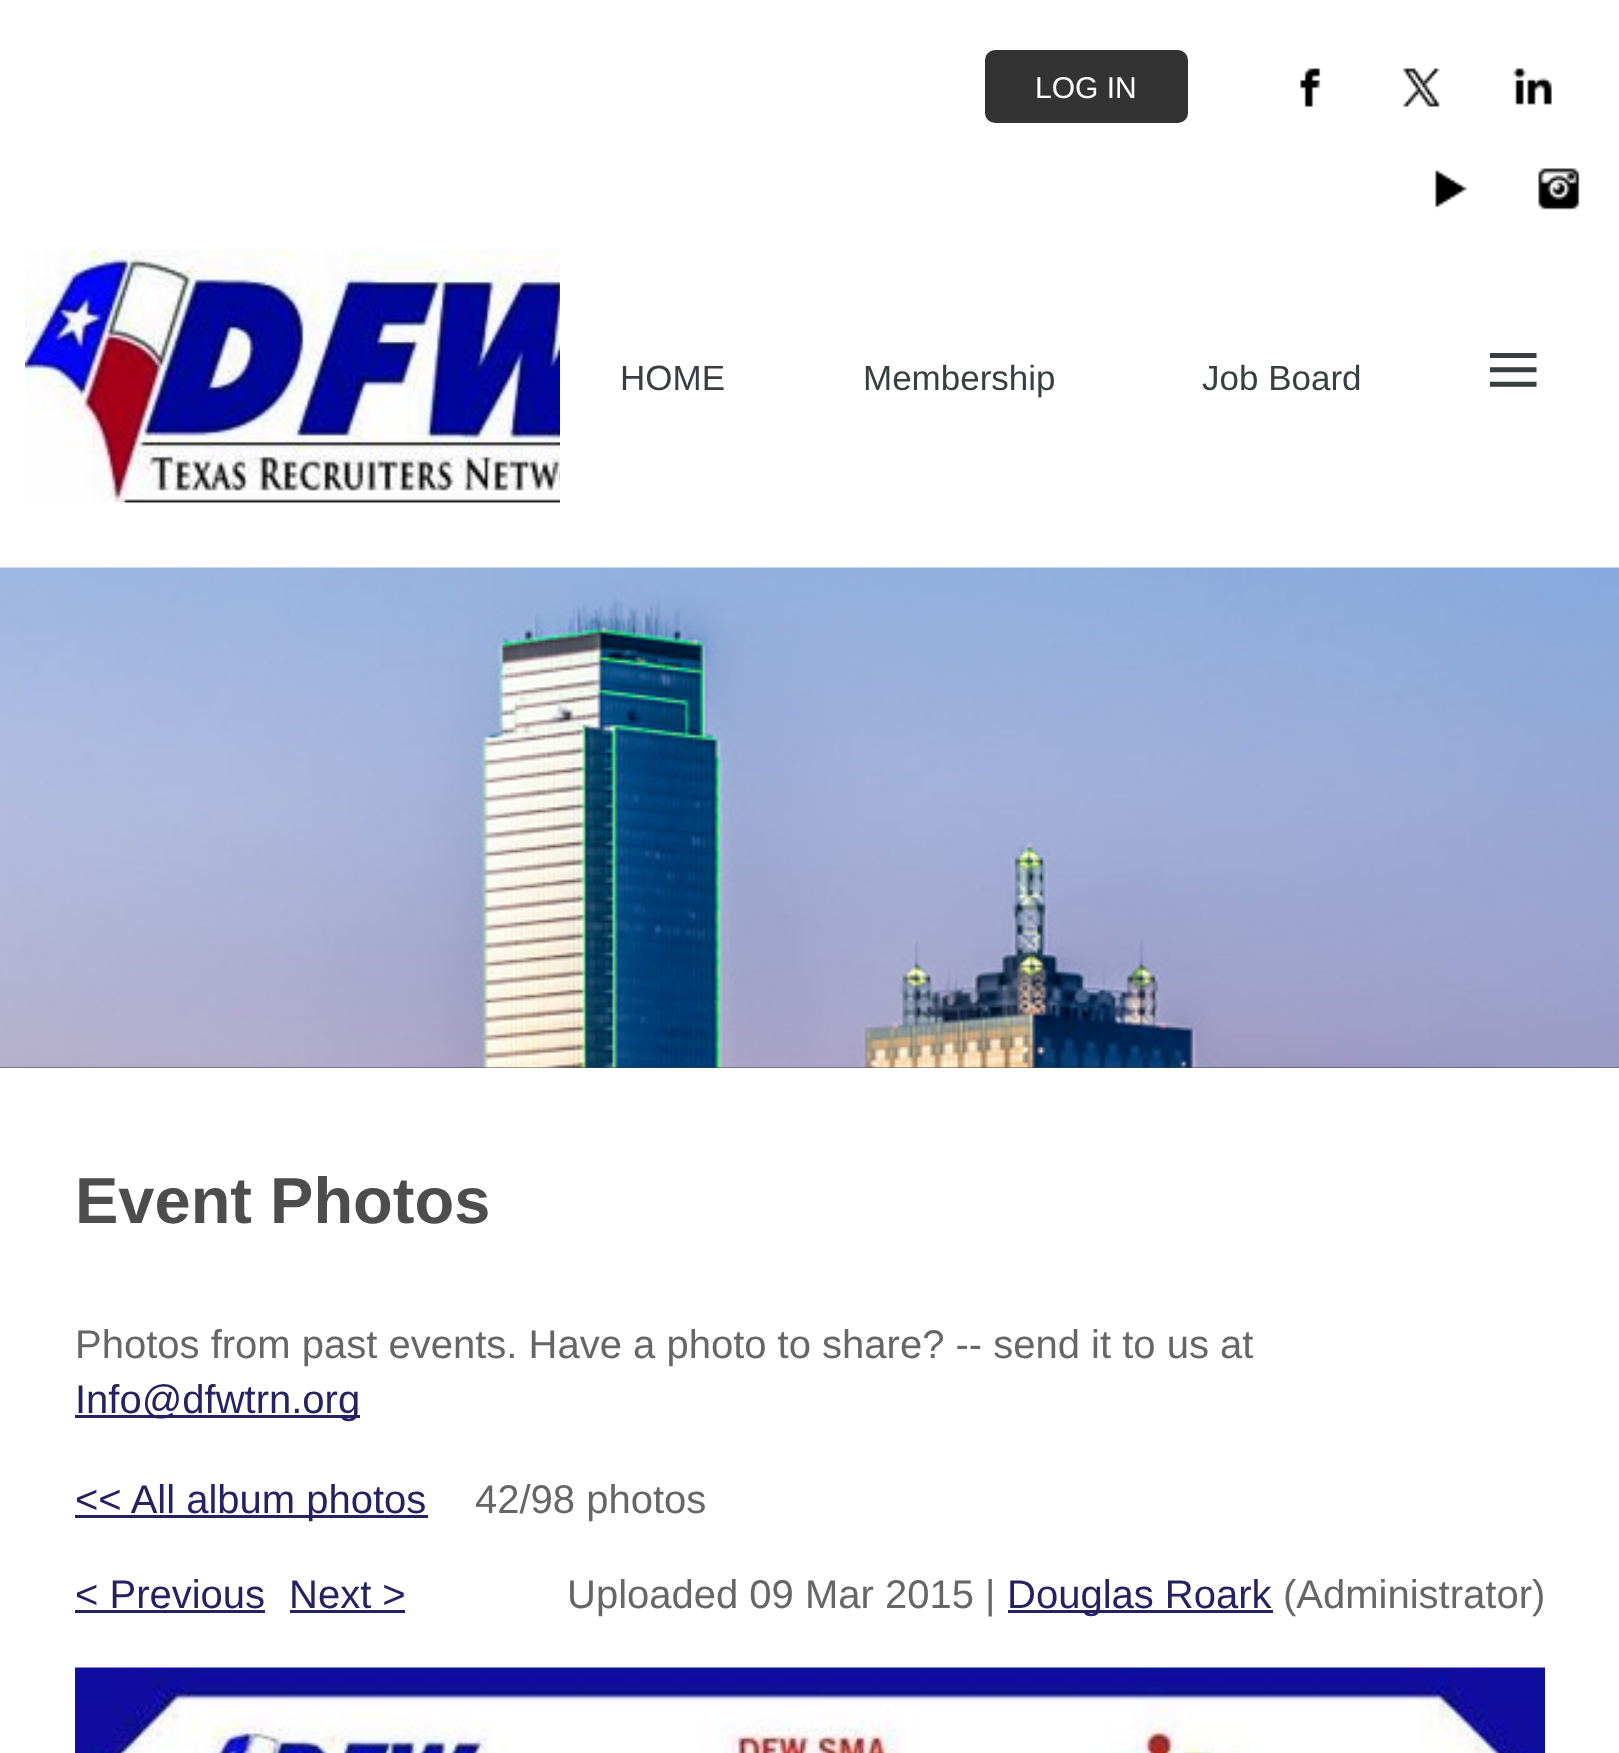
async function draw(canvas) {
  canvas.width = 1619
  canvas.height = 1753
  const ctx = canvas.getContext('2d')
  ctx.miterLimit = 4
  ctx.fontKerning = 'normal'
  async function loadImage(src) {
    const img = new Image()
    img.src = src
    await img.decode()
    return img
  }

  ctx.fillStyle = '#373f41'
  ctx.fillRect(0, 0, 1619, 1753)
  ctx.fillStyle = '#fff'
  ctx.fillRect(0, 0, 1619, 568)
  ctx.fillStyle = '#333'
  ctx.beginPath()
  ctx.roundRect(985, 50, 203, 73, 10)
  ctx.fill()
  ctx.font = '30px Liberation Sans'
  ctx.fillStyle = '#fff'
  ctx.fillText('LOG IN', 1035, 98)
  ctx.drawImage(await loadImage('image0.png'), 1300, 68, 21, 39)
  ctx.drawImage(await loadImage('image1.png'), 1403, 68, 37, 39)
  ctx.drawImage(await loadImage('image2.png'), 1513, 68, 39, 37)
  ctx.drawImage(await loadImage('image3.png'), 1435, 169, 32, 40)
  ctx.drawImage(await loadImage('image4.png'), 1538, 168, 42, 42)
  ctx.drawImage(await loadImage('image5.png'), 25, 250, 535, 253)
  ctx.font = '35px Liberation Sans'
  ctx.fillStyle = '#373f41'
  ctx.fillText('HOME', 620, 390)
  ctx.fillText('Membership', 863, 390)
  ctx.fillText('Job Board', 1202, 390)
  ctx.font = '100px Liberation Serif'
  ctx.fillText('≡', 1485, 403)
  ctx.drawImage(await loadImage('image6.png'), 0, 567, 1619, 501)
  ctx.fillStyle = '#fff'
  ctx.fillRect(0, 1068, 1619, 685)
  ctx.font = 'bold 65px Liberation Sans'
  ctx.fillStyle = '#4d4d4d'
  ctx.fillText('Event Photos', 75, 1223)
  ctx.font = '40px Liberation Sans'
  ctx.fillStyle = '#666'
  ctx.fillText('Photos from past events. Have a photo to share? -- send it to us at', 75, 1358)
  ctx.fillStyle = '#262262'
  ctx.fillRect(75, 1415, 285, 3)
  ctx.fillText('Info@dfwtrn.org', 75, 1413)
  ctx.fillRect(75, 1515, 353, 3)
  ctx.fillText('<< All album photos', 75, 1513)
  ctx.fillStyle = '#666'
  ctx.fillText('42/98 photos', 475, 1513)
  ctx.fillStyle = '#262262'
  ctx.fillText('< Previous', 75, 1608)
  ctx.fillRect(75, 1610, 190, 3)
  ctx.fillText('Next >', 289, 1608)
  ctx.fillRect(290, 1610, 115, 3)
  ctx.fillStyle = '#666'
  ctx.fillText('Uploaded 09 Mar 2015 |', 567, 1608)
  ctx.fillStyle = '#262262'
  ctx.fillRect(1008, 1610, 265, 3)
  ctx.fillText('Douglas Roark', 1007, 1608)
  ctx.fillStyle = '#666'
  ctx.fillText('(Administrator)', 1283, 1608)
  ctx.drawImage(await loadImage('image7.png'), 75, 1667, 1470, 86)
}

draw(document.querySelector('canvas'))
